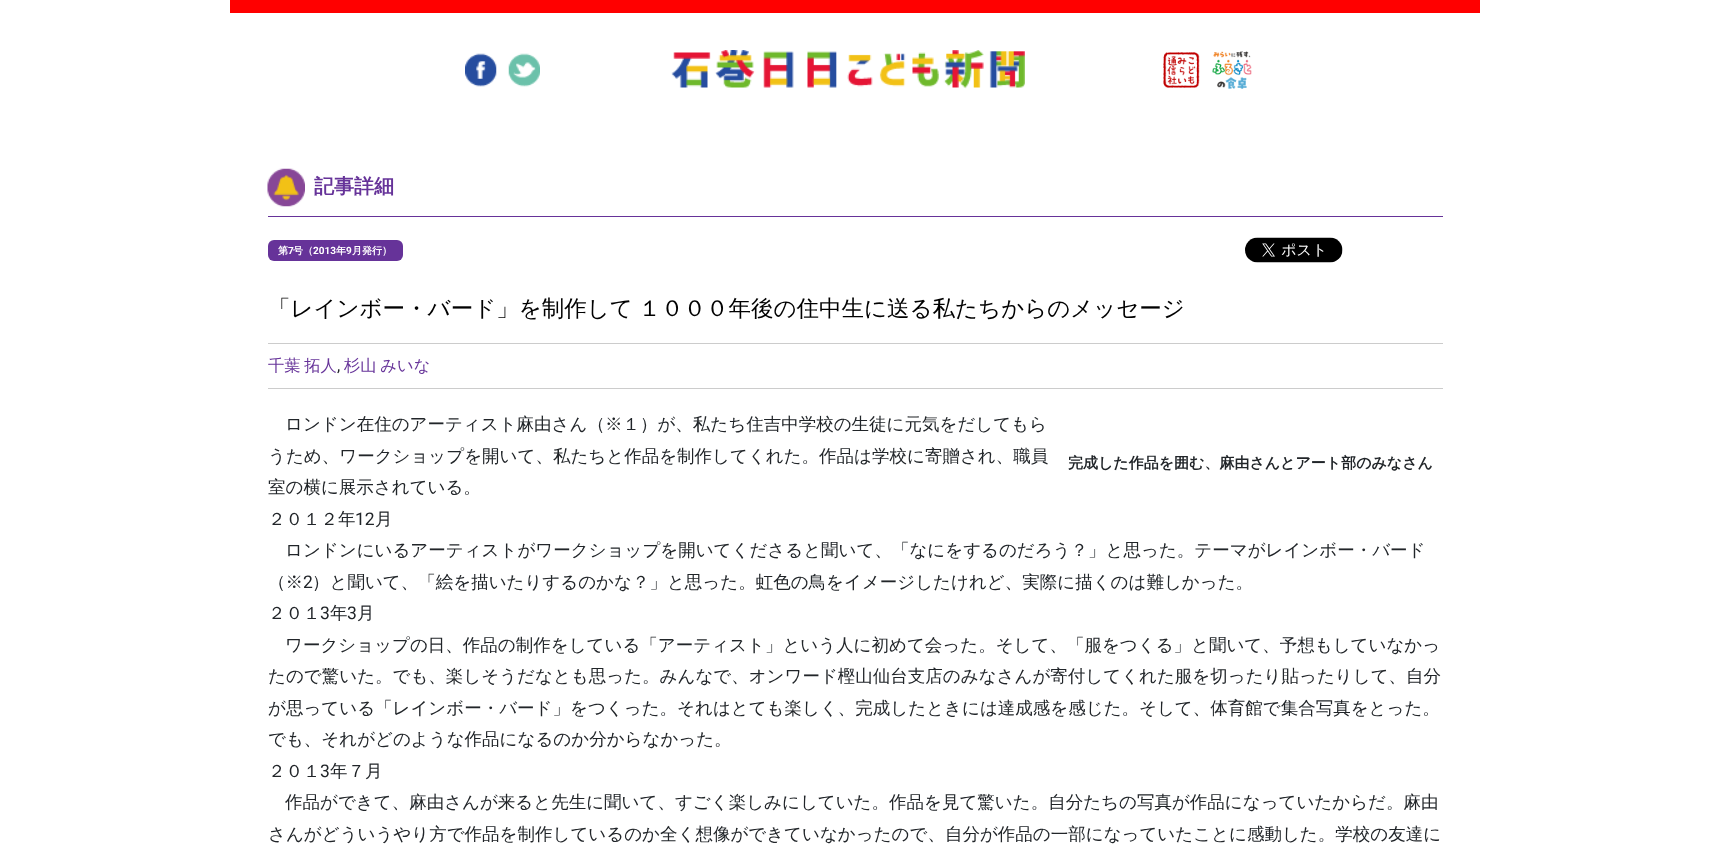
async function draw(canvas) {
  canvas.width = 1710
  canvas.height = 853
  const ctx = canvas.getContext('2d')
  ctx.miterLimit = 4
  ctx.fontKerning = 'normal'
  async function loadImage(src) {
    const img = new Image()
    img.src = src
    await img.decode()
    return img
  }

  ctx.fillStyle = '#fff'
  ctx.fillRect(0, 0, 1710, 853)
  ctx.fillStyle = '#f00'
  ctx.fillRect(230, 0, 1250, 13)
  ctx.drawImage(await loadImage('image0.png'), 465, 53, 32, 34)
  ctx.drawImage(await loadImage('image1.png'), 508, 53, 32, 34)
  ctx.drawImage(await loadImage('image2.png'), 671, 50, 354, 39)
  ctx.drawImage(await loadImage('image3.png'), 1163, 52, 37, 36)
  ctx.drawImage(await loadImage('image4.png'), 1212, 51, 40, 38)
  ctx.fillStyle = '#639'
  ctx.fillRect(268, 216, 1175, 1)
  ctx.drawImage(await loadImage('image5.png'), 267, 168, 38, 39)
  ctx.font = 'bold 20px WenQuanYi Zen Hei'
  ctx.fillText('記事詳細', 314, 193)
  ctx.beginPath()
  ctx.roundRect(268, 240, 135, 21, 6)
  ctx.fill()
  ctx.font = 'bold 10px WenQuanYi Zen Hei'
  ctx.fillStyle = '#fff'
  ctx.fillText('第', 278, 254)
  ctx.font = 'bold 10px Roboto'
  ctx.fillText('7', 288, 254)
  ctx.font = 'bold 10px WenQuanYi Zen Hei'
  ctx.fillText('号（', 293, 254)
  ctx.font = 'bold 10px Roboto'
  ctx.fillText('2013', 313, 254)
  ctx.font = 'bold 10px WenQuanYi Zen Hei'
  ctx.fillText('年', 336, 254)
  ctx.font = 'bold 10px Roboto'
  ctx.fillText('9', 346, 254)
  ctx.font = 'bold 10px WenQuanYi Zen Hei'
  ctx.fillText('月発行）', 352, 254)
  ctx.drawImage(await loadImage('image6.png'), 1245, 237, 98, 26)
  ctx.fillStyle = '#ccc'
  ctx.fillRect(268, 343, 1175, 1)
  ctx.wordSpacing = '-1px'
  ctx.font = '500 22.5px WenQuanYi Zen Hei'
  ctx.fillStyle = '#000'
  ctx.fillText('「レインボー・バード」を制作して １０００年後の住中生に送る私たちからのメッセージ', 268, 316)
  ctx.fillStyle = '#ccc'
  ctx.fillRect(268, 388, 1175, 1)
  ctx.font = '500 16.25px WenQuanYi Zen Hei'
  ctx.fillStyle = '#639'
  ctx.fillText('千葉 拓人', 268, 371)
  ctx.wordSpacing = '0px'
  ctx.font = '16.25px Roboto'
  ctx.fillStyle = '#212529'
  ctx.fillText(',', 337, 371)
  ctx.wordSpacing = '-1px'
  ctx.font = '500 16.25px WenQuanYi Zen Hei'
  ctx.fillStyle = '#639'
  ctx.fillText('杉山 みいな', 344, 371)
  ctx.wordSpacing = '0px'
  ctx.font = '500 17.5px WenQuanYi Zen Hei'
  ctx.fillStyle = '#212529'
  ctx.fillText('ロンドン在住のアーティスト麻由さん（※１）が、私たち住吉中学校の生徒に元気をだしてもら', 285, 430)
  ctx.fillText('うため、ワークショップを開いて、私たちと作品を制作してくれた。作品は学校に寄贈され、職員', 268, 462)
  ctx.fillText('室の横に展示されている。', 268, 493)
  ctx.fillText('２０１２年', 268, 525)
  ctx.font = '17.5px Roboto'
  ctx.fillText('12', 355, 525)
  ctx.font = '500 17.5px WenQuanYi Zen Hei'
  ctx.fillText('月', 375, 525)
  ctx.fillText('ロンドンにいるアーティストがワークショップを開いてくださると聞いて、「なにをするのだろう？」と思った。テーマがレインボー・バード', 285, 556)
  ctx.fillText('（※', 268, 588)
  ctx.font = '17.5px Roboto'
  ctx.fillText('2', 303, 588)
  ctx.font = '500 17.5px WenQuanYi Zen Hei'
  ctx.fillText('）と聞いて、「絵を描いたりするのかな？」と思った。虹色の鳥をイメージしたけれど、実際に描くのは難しかった。', 312, 588)
  ctx.fillText('２０１', 268, 619)
  ctx.font = '17.5px Roboto'
  ctx.fillText('3', 320, 619)
  ctx.font = '500 17.5px WenQuanYi Zen Hei'
  ctx.fillText('年', 330, 619)
  ctx.font = '17.5px Roboto'
  ctx.fillText('3', 347, 619)
  ctx.font = '500 17.5px WenQuanYi Zen Hei'
  ctx.fillText('月', 357, 619)
  ctx.fillText('ワークショップの日、作品の制作をしている「アーティスト」という人に初めて会った。そして、「服をつくる」と聞いて、予想もしていなかっ', 285, 651)
  ctx.fillText('たので驚いた。でも、楽しそうだなとも思った。みんなで、オンワード樫山仙台支店のみなさんが寄付してくれた服を切ったり貼ったりして、自分', 268, 682)
  ctx.fillText('が思っている「レインボー・バード」をつくった。それはとても楽しく、完成したときには達成感を感じた。そして、体育館で集合写真をとった。', 268, 714)
  ctx.fillText('でも、それがどのような作品になるのか分からなかった。', 268, 745)
  ctx.fillText('２０１', 268, 777)
  ctx.font = '17.5px Roboto'
  ctx.fillText('3', 320, 777)
  ctx.font = '500 17.5px WenQuanYi Zen Hei'
  ctx.fillText('年７月', 330, 777)
  ctx.fillText('作品ができて、麻由さんが来ると先生に聞いて、すごく楽しみにしていた。作品を見て驚いた。自分たちの写真が作品になっていたからだ。麻由', 285, 808)
  ctx.fillText('さんがどういうやり方で作品を制作しているのか全く想像ができていなかったので、自分が作品の一部になっていたことに感動した。学校の友達に', 268, 840)
  ctx.font = 'bold 15px WenQuanYi Zen Hei'
  ctx.fillText('完成した作品を囲む、麻由さんとアート部のみなさん', 1068, 468)
}

draw(document.querySelector('canvas'))
